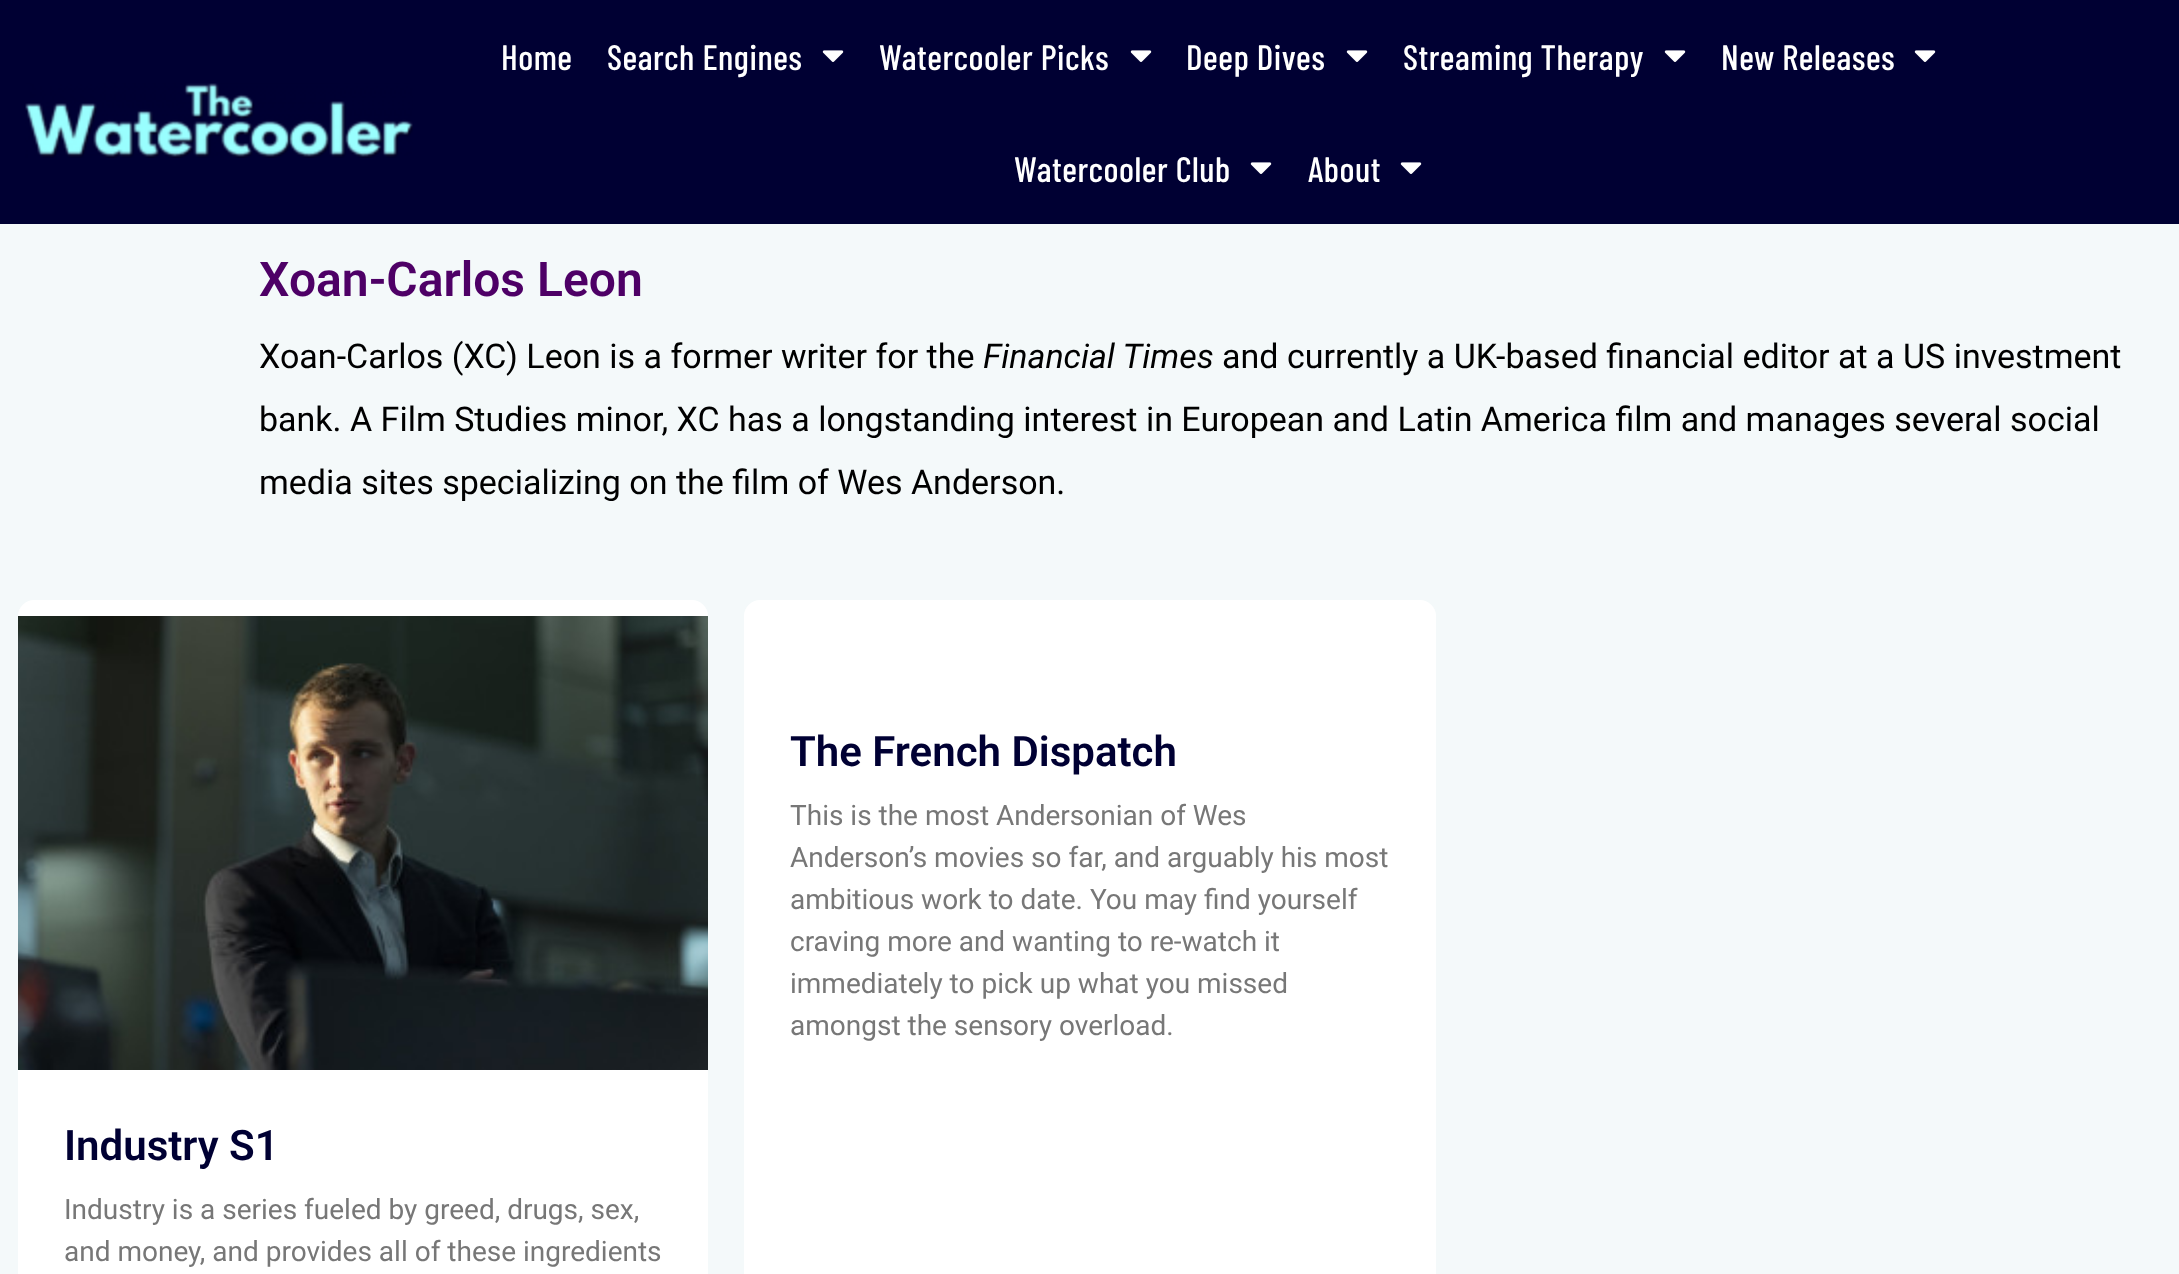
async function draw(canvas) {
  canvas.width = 2179
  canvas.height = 1274
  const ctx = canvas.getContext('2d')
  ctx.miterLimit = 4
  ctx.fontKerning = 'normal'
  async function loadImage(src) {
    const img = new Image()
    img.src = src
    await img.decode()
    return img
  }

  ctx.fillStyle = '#f4f9fa'
  ctx.fillRect(0, 0, 2179, 1274)
  ctx.fillStyle = '#003'
  ctx.fillRect(0, 0, 2179, 224)
  ctx.drawImage(await loadImage('image0.png'), 25, 83, 388, 75)
  ctx.letterSpacing = '0.5px'
  ctx.font = '500 35.25px Barlow Condensed'
  ctx.fillStyle = '#fff'
  ctx.fillText('Home', 501, 70)
  ctx.fillText('Search Engines', 607, 70)
  ctx.drawImage(await loadImage('image1.png'), 822, 50, 22, 12)
  ctx.fillText('Watercooler Picks', 879, 70)
  ctx.drawImage(await loadImage('image1.png'), 1130, 50, 22, 12)
  ctx.fillText('Deep Dives', 1186, 70)
  ctx.drawImage(await loadImage('image1.png'), 1346, 50, 22, 12)
  ctx.fillText('Streaming Therapy', 1403, 70)
  ctx.drawImage(await loadImage('image1.png'), 1664, 50, 22, 12)
  ctx.fillText('New Releases', 1721, 70)
  ctx.drawImage(await loadImage('image1.png'), 1914, 50, 22, 12)
  ctx.fillText('Watercooler Club', 1014, 182)
  ctx.drawImage(await loadImage('image1.png'), 1250, 162, 22, 12)
  ctx.fillText('About', 1308, 182)
  ctx.drawImage(await loadImage('image1.png'), 1400, 162, 22, 12)
  ctx.letterSpacing = '0px'
  ctx.font = '600 48px Roboto'
  ctx.fillStyle = '#4e0066'
  ctx.fillText('Xoan-Carlos Leon', 259, 296)
  ctx.font = '34px Roboto'
  ctx.fillStyle = '#000'
  ctx.fillText('Xoan-Carlos (XC) Leon is a former writer for the', 259, 368)
  ctx.font = 'italic 34px Roboto'
  ctx.fillText('Financial Times', 983, 368)
  ctx.font = '34px Roboto'
  ctx.fillText('and currently a UK-based financial editor at a US investment', 1222, 368)
  ctx.fillText('bank. A Film Studies minor, XC has a longstanding interest in European and Latin America film and manages several social', 259, 431)
  ctx.fillText('media sites specializing on the film of Wes Anderson.', 259, 494)
  ctx.fillStyle = '#fff'
  ctx.beginPath()
  ctx.roundRect(744, 600, 692, 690, 16)
  ctx.fill()
  ctx.font = '600 42px Roboto'
  ctx.fillStyle = '#003'
  ctx.fillText('The French Dispatch', 790, 766)
  ctx.font = '28px Roboto'
  ctx.fillStyle = '#777'
  ctx.fillText('This is the most Andersonian of Wes', 790, 825)
  ctx.fillText('Anderson’s movies so far, and arguably his most', 790, 867)
  ctx.fillText('ambitious work to date. You may find yourself', 790, 909)
  ctx.fillText('craving more and wanting to re-watch it', 790, 951)
  ctx.fillText('immediately to pick up what you missed', 790, 993)
  ctx.fillText('amongst the sensory overload.', 790, 1035)
  ctx.fillStyle = '#fff'
  ctx.beginPath()
  ctx.roundRect(18, 600, 690, 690, 16)
  ctx.fill()
  ctx.drawImage(await loadImage('image2.png'), 18, 616, 690, 454)
  ctx.font = '600 42px Roboto'
  ctx.fillStyle = '#003'
  ctx.fillText('Industry S1', 64, 1160)
  ctx.font = '28px Roboto'
  ctx.fillStyle = '#777'
  ctx.fillText('Industry is a series fueled by greed, drugs, sex,', 64, 1219)
  ctx.fillText('and money, and provides all of these ingredients', 64, 1261)
}

draw(document.querySelector('canvas'))
